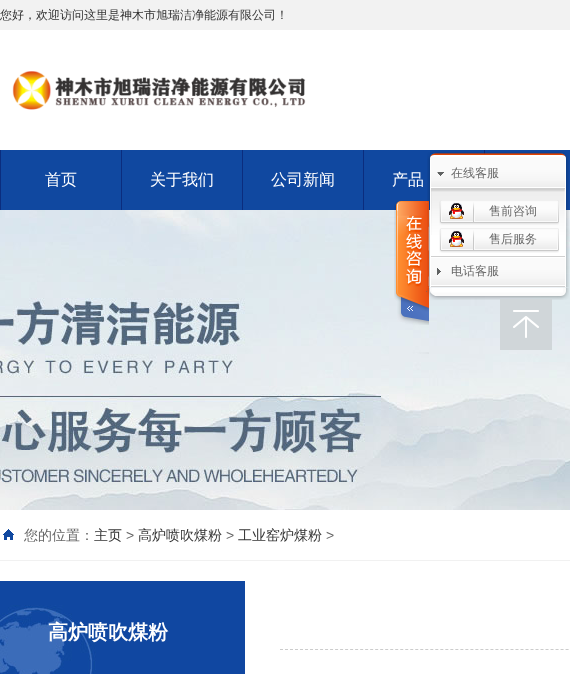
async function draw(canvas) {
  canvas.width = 570
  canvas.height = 674
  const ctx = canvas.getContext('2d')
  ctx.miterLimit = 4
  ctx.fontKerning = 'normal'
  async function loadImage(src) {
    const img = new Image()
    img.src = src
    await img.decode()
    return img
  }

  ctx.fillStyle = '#fff'
  ctx.fillRect(0, 0, 570, 674)
  ctx.fillStyle = '#f2f2f2'
  ctx.fillRect(0, 0, 570, 30)
  ctx.font = '500 12px WenQuanYi Zen Hei'
  ctx.fillStyle = '#333'
  ctx.fillText('您好，欢迎访问这里是神木市旭瑞洁净能源有限公司！', 0, 19)
  ctx.drawImage(await loadImage('image0.png'), 12, 71, 294, 39)
  ctx.fillStyle = '#1048a0'
  ctx.fillRect(1, 150, 569, 60)
  ctx.fillStyle = '#0b2d7e'
  ctx.fillRect(121, 150, 1, 60)
  ctx.fillRect(0, 150, 1, 60)
  ctx.font = '500 16px WenQuanYi Zen Hei'
  ctx.fillStyle = '#fff'
  ctx.fillText('首页', 45, 185)
  ctx.fillStyle = '#0b2d7e'
  ctx.fillRect(242, 150, 1, 60)
  ctx.fillStyle = '#fff'
  ctx.fillText('关于我们', 150, 185)
  ctx.fillStyle = '#0b2d7e'
  ctx.fillRect(363, 150, 1, 60)
  ctx.fillStyle = '#fff'
  ctx.fillText('公司新闻', 271, 185)
  ctx.fillStyle = '#0b2d7e'
  ctx.fillRect(484, 150, 1, 4)
  ctx.fillStyle = '#fff'
  ctx.fillText('产品', 392, 185)
  ctx.drawImage(await loadImage('image11.png'), 0, 210, 570, 300)
  ctx.drawImage(await loadImage('image1.png'), 394, 201, 35, 153)
  ctx.drawImage(await loadImage('image2.png'), 427, 151, 142, 9)
  ctx.drawImage(await loadImage('image3.png'), 427, 160, 142, 127)
  ctx.drawImage(await loadImage('image4.png'), 431, 160, 134, 29)
  ctx.drawImage(await loadImage('image5.png'), 437, 172, 7, 4)
  ctx.font = '500 12px WenQuanYi Zen Hei'
  ctx.fillStyle = '#666'
  ctx.fillText('在线客服', 451, 177)
  ctx.drawImage(await loadImage('image6.png'), 431, 189, 134, 46)
  ctx.fillStyle = '#d0d0d0'
  ctx.fillRect(431, 256, 134, 1)
  ctx.drawImage(await loadImage('image7.png'), 439, 200, 120, 25)
  ctx.fillStyle = '#666'
  ctx.fillText('售前咨询', 489, 215)
  ctx.drawImage(await loadImage('image8.png'), 439, 228, 120, 25)
  ctx.fillText('售后服务', 489, 243)
  ctx.drawImage(await loadImage('image4.png'), 431, 258, 134, 29)
  ctx.drawImage(await loadImage('image9.png'), 437, 268, 4, 7)
  ctx.fillText('电话客服', 451, 275)
  ctx.drawImage(await loadImage('image10.png'), 426, 287, 143, 13)
  ctx.drawImage(await loadImage('image12.png'), 500, 299, 52, 51)
  ctx.fillStyle = '#f1f1f1'
  ctx.fillRect(0, 560, 570, 1)
  ctx.drawImage(await loadImage('image13.png'), 3, 529, 11, 11)
  ctx.font = '500 14px WenQuanYi Zen Hei'
  ctx.fillStyle = '#666'
  ctx.fillText('您的位置：', 24, 540)
  ctx.fillStyle = '#333'
  ctx.fillText('主页', 94, 540)
  ctx.font = '14px Liberation Sans'
  ctx.fillStyle = '#666'
  ctx.fillText('>', 126, 540)
  ctx.font = '500 14px WenQuanYi Zen Hei'
  ctx.fillStyle = '#333'
  ctx.fillText('高炉喷吹煤粉', 138, 540)
  ctx.font = '14px Liberation Sans'
  ctx.fillStyle = '#666'
  ctx.fillText('>', 226, 540)
  ctx.font = '500 14px WenQuanYi Zen Hei'
  ctx.fillStyle = '#333'
  ctx.fillText('工业窑炉煤粉', 238, 540)
  ctx.font = '14px Liberation Sans'
  ctx.fillStyle = '#666'
  ctx.fillText('>', 326, 540)
  ctx.drawImage(await loadImage('image14.png'), 0, 581, 245, 93)
  ctx.font = 'bold 20px WenQuanYi Zen Hei'
  ctx.fillStyle = '#fff'
  ctx.fillText('高炉喷吹煤粉', 48, 639)
  ctx.beginPath()
  ctx.moveTo(280, 649.5)
  ctx.lineTo(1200, 649.5)
  ctx.strokeStyle = '#ccc'
  ctx.setLineDash([3, 2.01])
  ctx.stroke()
}

draw(document.querySelector('canvas'))
